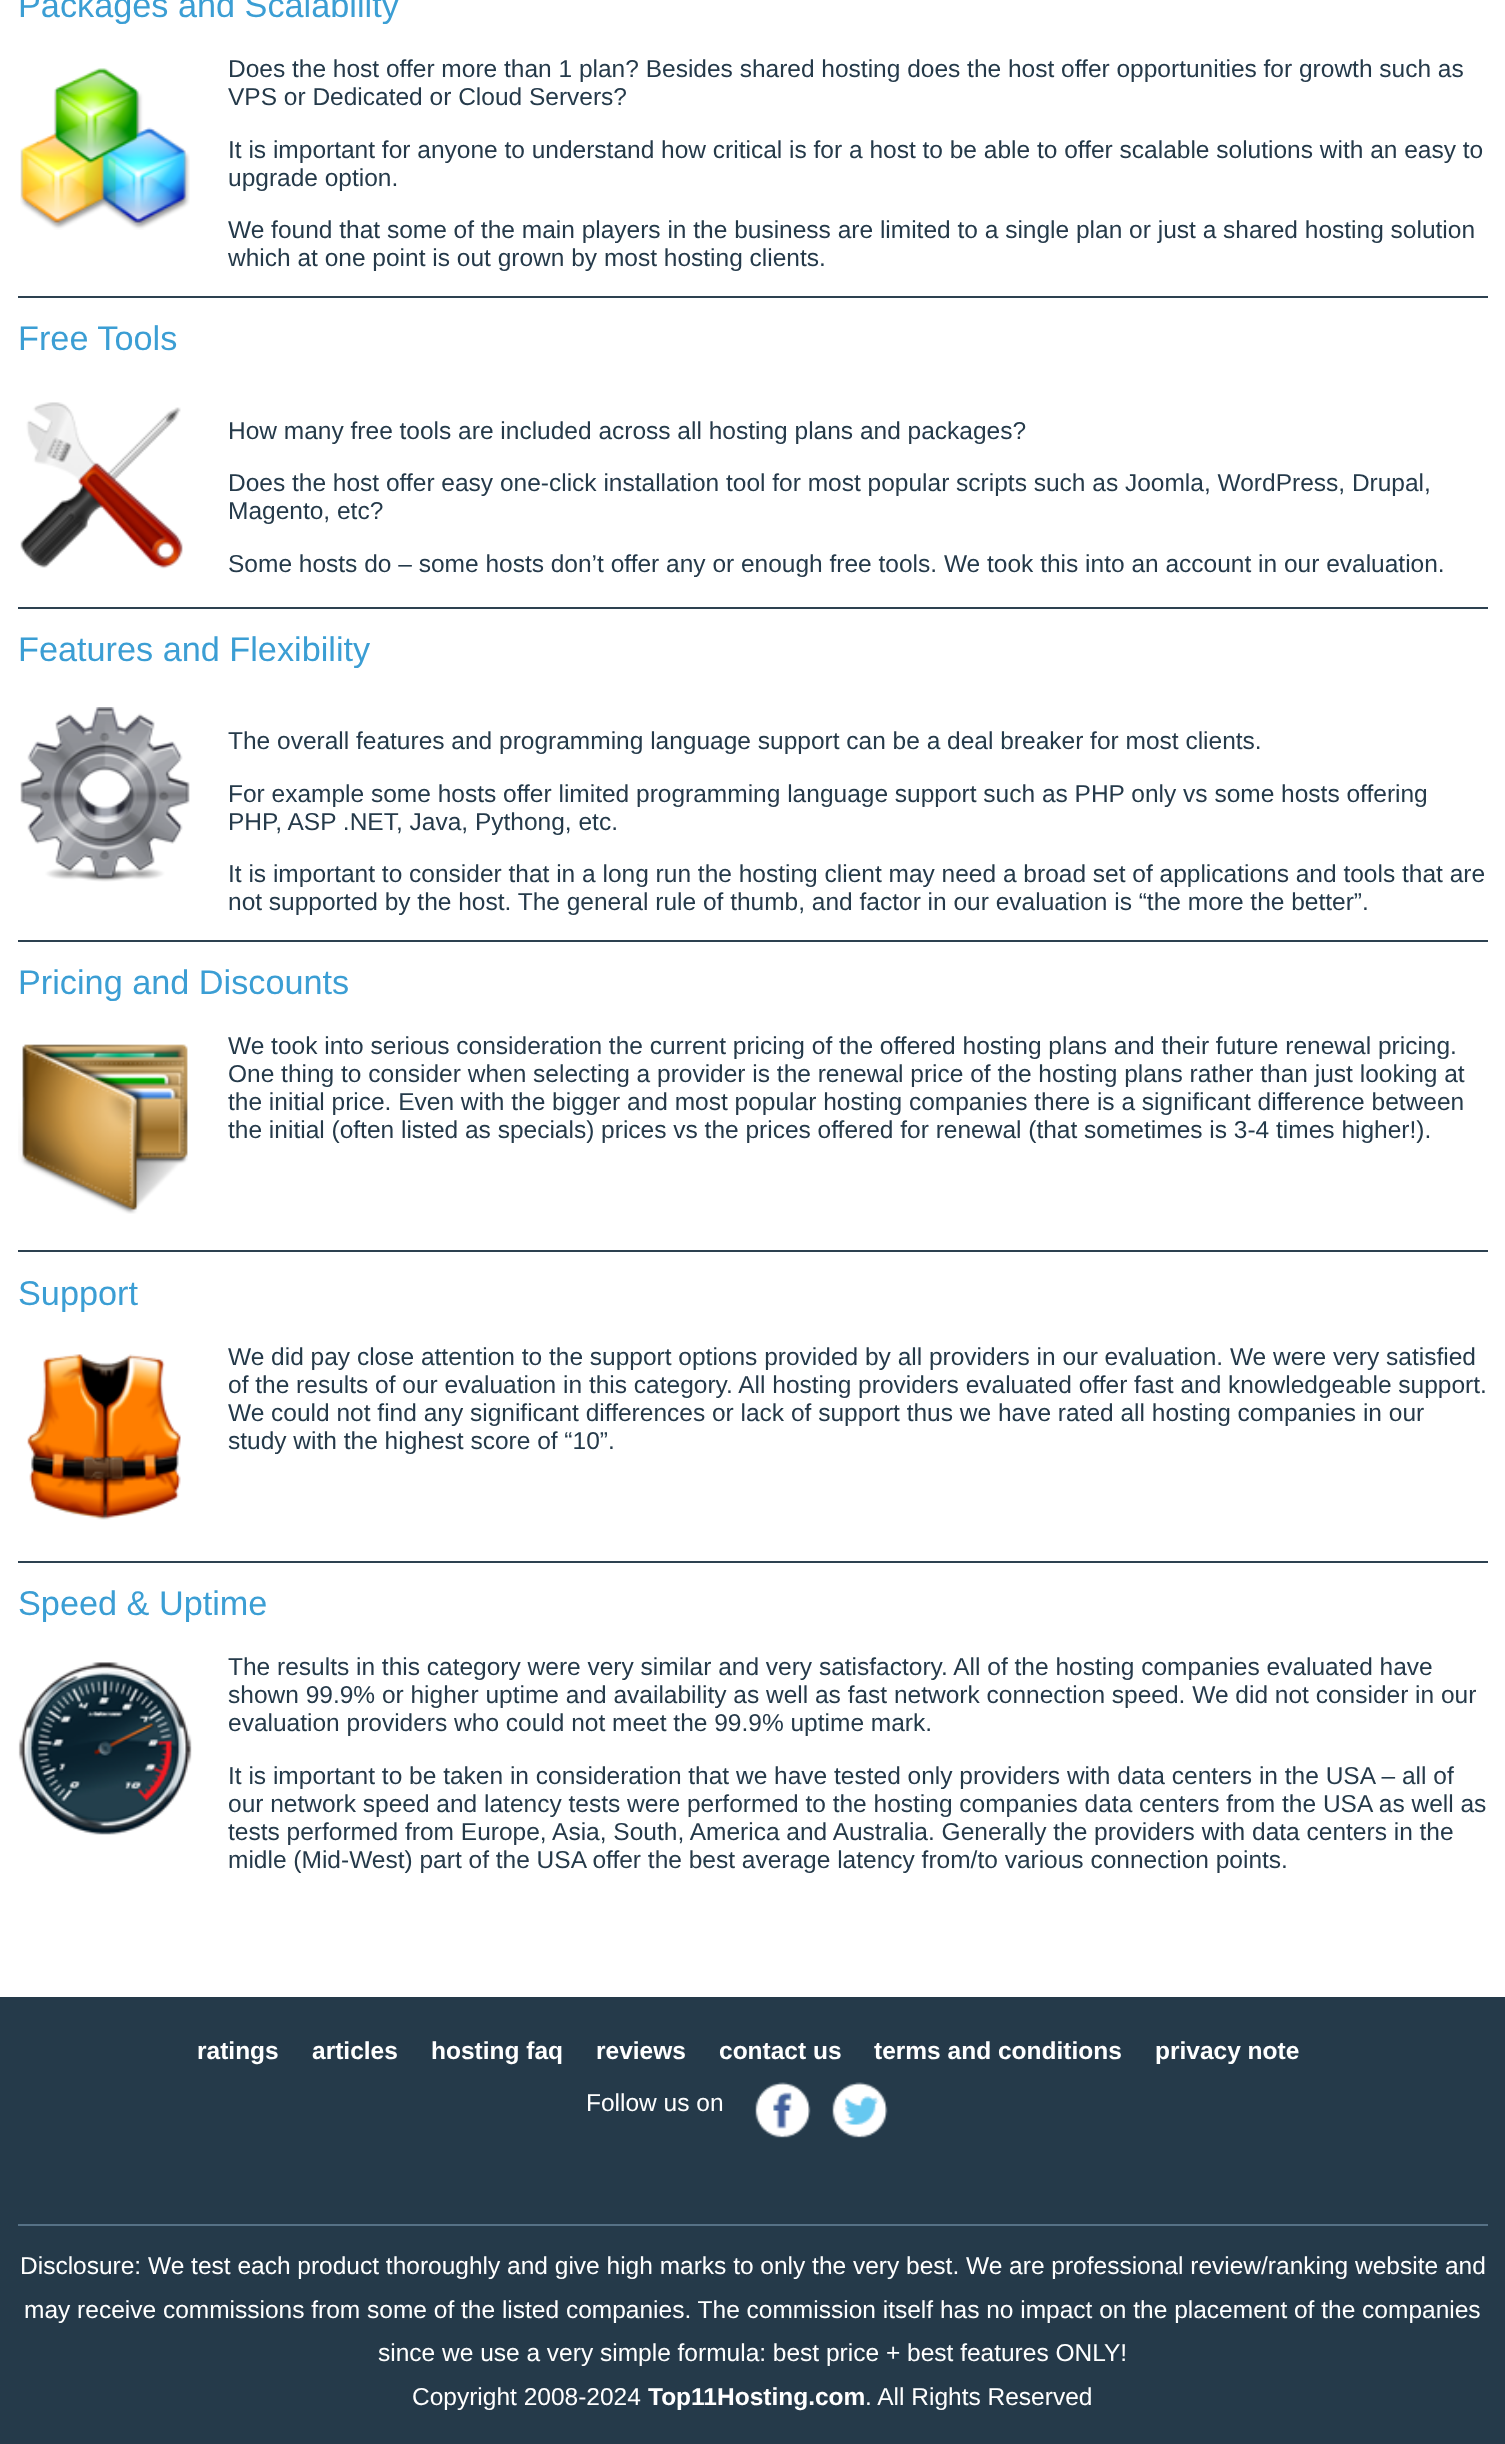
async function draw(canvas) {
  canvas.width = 1505
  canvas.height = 2444
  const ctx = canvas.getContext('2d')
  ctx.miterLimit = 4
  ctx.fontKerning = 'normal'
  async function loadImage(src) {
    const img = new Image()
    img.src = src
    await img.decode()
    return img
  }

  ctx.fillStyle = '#fff'
  ctx.fillRect(0, 0, 1505, 2444)
  ctx.font = '34.25px Liberation Sans'
  ctx.fillStyle = '#3b9ed4'
  ctx.fillText('Packages and Scalability', 18, 17)
  ctx.drawImage(await loadImage('image0.png'), 20, 68, 170, 162)
  ctx.font = '24.5px Liberation Sans'
  ctx.fillStyle = '#253a4a'
  ctx.fillText('Does the host offer more than 1 plan? Besides shared hosting does the host offer opportunities for growth such as', 228, 77)
  ctx.fillText('VPS or Dedicated or Cloud Servers?', 228, 105)
  ctx.fillText('It is important for anyone to understand how critical is for a host to be able to offer scalable solutions with an easy to', 228, 158)
  ctx.fillText('upgrade option.', 228, 186)
  ctx.fillText('We found that some of the main players in the business are limited to a single plan or just a shared hosting solution', 228, 238)
  ctx.fillText('which at one point is out grown by most hosting clients.', 228, 266)
  ctx.fillStyle = '#2d4150'
  ctx.fillRect(18, 296, 1470, 2)
  ctx.font = '34.25px Liberation Sans'
  ctx.fillStyle = '#3b9ed4'
  ctx.fillText('Free Tools', 18, 350)
  ctx.drawImage(await loadImage('image1.png'), 20, 402, 163, 167)
  ctx.font = '24.5px Liberation Sans'
  ctx.fillStyle = '#253a4a'
  ctx.fillText('How many free tools are included across all hosting plans and packages?', 228, 439)
  ctx.fillText('Does the host offer easy one-click installation tool for most popular scripts such as Joomla, WordPress, Drupal,', 228, 491)
  ctx.fillText('Magento, etc?', 228, 519)
  ctx.fillText('Some hosts do – some hosts don’t offer any or enough free tools. We took this into an account in our evaluation.', 228, 572)
  ctx.fillStyle = '#2d4150'
  ctx.fillRect(18, 607, 1470, 2)
  ctx.font = '34.25px Liberation Sans'
  ctx.fillStyle = '#3b9ed4'
  ctx.fillText('Features and Flexibility', 18, 661)
  ctx.drawImage(await loadImage('image2.png'), 20, 707, 170, 175)
  ctx.font = '24.5px Liberation Sans'
  ctx.fillStyle = '#253a4a'
  ctx.fillText('The overall features and programming language support can be a deal breaker for most clients.', 228, 749)
  ctx.fillText('For example some hosts offer limited programming language support such as PHP only vs some hosts offering', 228, 802)
  ctx.fillText('PHP, ASP .NET, Java, Pythong, etc.', 228, 830)
  ctx.fillText('It is important to consider that in a long run the hosting client may need a broad set of applications and tools that are', 228, 882)
  ctx.fillText('not supported by the host. The general rule of thumb, and factor in our evaluation is “the more the better”.', 228, 910)
  ctx.fillStyle = '#2d4150'
  ctx.fillRect(18, 940, 1470, 2)
  ctx.font = '34.25px Liberation Sans'
  ctx.fillStyle = '#3b9ed4'
  ctx.fillText('Pricing and Discounts', 18, 994)
  ctx.drawImage(await loadImage('image3.png'), 18, 1044, 170, 170)
  ctx.font = '24.5px Liberation Sans'
  ctx.fillStyle = '#253a4a'
  ctx.fillText('We took into serious consideration the current pricing of the offered hosting plans and their future renewal pricing.', 228, 1054)
  ctx.fillText('One thing to consider when selecting a provider is the renewal price of the hosting plans rather than just looking at', 228, 1082)
  ctx.fillText('the initial price. Even with the bigger and most popular hosting companies there is a significant difference between', 228, 1110)
  ctx.fillText('the initial (often listed as specials) prices vs the prices offered for renewal (that sometimes is 3-4 times higher!).', 228, 1138)
  ctx.fillStyle = '#2d4150'
  ctx.fillRect(18, 1250, 1470, 2)
  ctx.font = '34.25px Liberation Sans'
  ctx.fillStyle = '#3b9ed4'
  ctx.fillText('Support', 18, 1305)
  ctx.drawImage(await loadImage('image4.png'), 27, 1354, 154, 166)
  ctx.font = '24.5px Liberation Sans'
  ctx.fillStyle = '#253a4a'
  ctx.fillText('We did pay close attention to the support options provided by all providers in our evaluation. We were very satisfied', 228, 1365)
  ctx.fillText('of the results of our evaluation in this category. All hosting providers evaluated offer fast and knowledgeable support.', 228, 1393)
  ctx.fillText('We could not find any significant differences or lack of support thus we have rated all hosting companies in our', 228, 1421)
  ctx.fillText('study with the highest score of “10”.', 228, 1449)
  ctx.fillStyle = '#2d4150'
  ctx.fillRect(18, 1561, 1470, 2)
  ctx.font = '34.25px Liberation Sans'
  ctx.fillStyle = '#3b9ed4'
  ctx.fillText('Speed & Uptime', 18, 1615)
  ctx.drawImage(await loadImage('image5.png'), 18, 1662, 174, 173)
  ctx.font = '24.5px Liberation Sans'
  ctx.fillStyle = '#253a4a'
  ctx.fillText('The results in this category were very similar and very satisfactory. All of the hosting companies evaluated have', 228, 1675)
  ctx.fillText('shown 99.9% or higher uptime and availability as well as fast network connection speed. We did not consider in our', 228, 1703)
  ctx.fillText('evaluation providers who could not meet the 99.9% uptime mark.', 228, 1731)
  ctx.fillText('It is important to be taken in consideration that we have tested only providers with data centers in the USA – all of', 228, 1784)
  ctx.fillText('our network speed and latency tests were performed to the hosting companies data centers from the USA as well as', 228, 1812)
  ctx.fillText('tests performed from Europe, Asia, South, America and Australia. Generally the providers with data centers in the', 228, 1840)
  ctx.fillText('midle (Mid-West) part of the USA offer the best average latency from/to various connection points.', 228, 1868)
  ctx.fillRect(0, 1997, 1505, 447)
  ctx.font = 'bold 24.5px Liberation Sans'
  ctx.fillStyle = '#fff'
  ctx.fillText('ratings', 197, 2059)
  ctx.fillText('articles', 312, 2059)
  ctx.fillText('hosting faq', 431, 2059)
  ctx.fillText('reviews', 596, 2059)
  ctx.fillText('contact us', 719, 2059)
  ctx.fillText('terms and conditions', 874, 2059)
  ctx.fillText('privacy note', 1155, 2059)
  ctx.font = '24.5px Liberation Sans'
  ctx.fillText('Follow us on', 586, 2111)
  ctx.drawImage(await loadImage('image6.png'), 755, 2082, 56, 56)
  ctx.drawImage(await loadImage('image7.png'), 832, 2082, 56, 56)
  ctx.fillStyle = '#567186'
  ctx.fillRect(18, 2224, 1470, 2)
  ctx.fillStyle = '#fff'
  ctx.fillText('Disclosure: We test each product thoroughly and give high marks to only the very best. We are professional review/ranking website and', 20, 2274)
  ctx.fillText('may receive commissions from some of the listed companies. The commission itself has no impact on the placement of the companies', 24, 2318)
  ctx.fillText('since we use a very simple formula: best price + best features ONLY!', 378, 2361)
  ctx.fillText('Copyright 2008-2024', 412, 2405)
  ctx.font = 'bold 24.5px Liberation Sans'
  ctx.fillText('Top11Hosting.com', 648, 2405)
  ctx.font = '24.5px Liberation Sans'
  ctx.fillText('. All Rights Reserved', 865, 2405)
}

draw(document.querySelector('canvas'))
